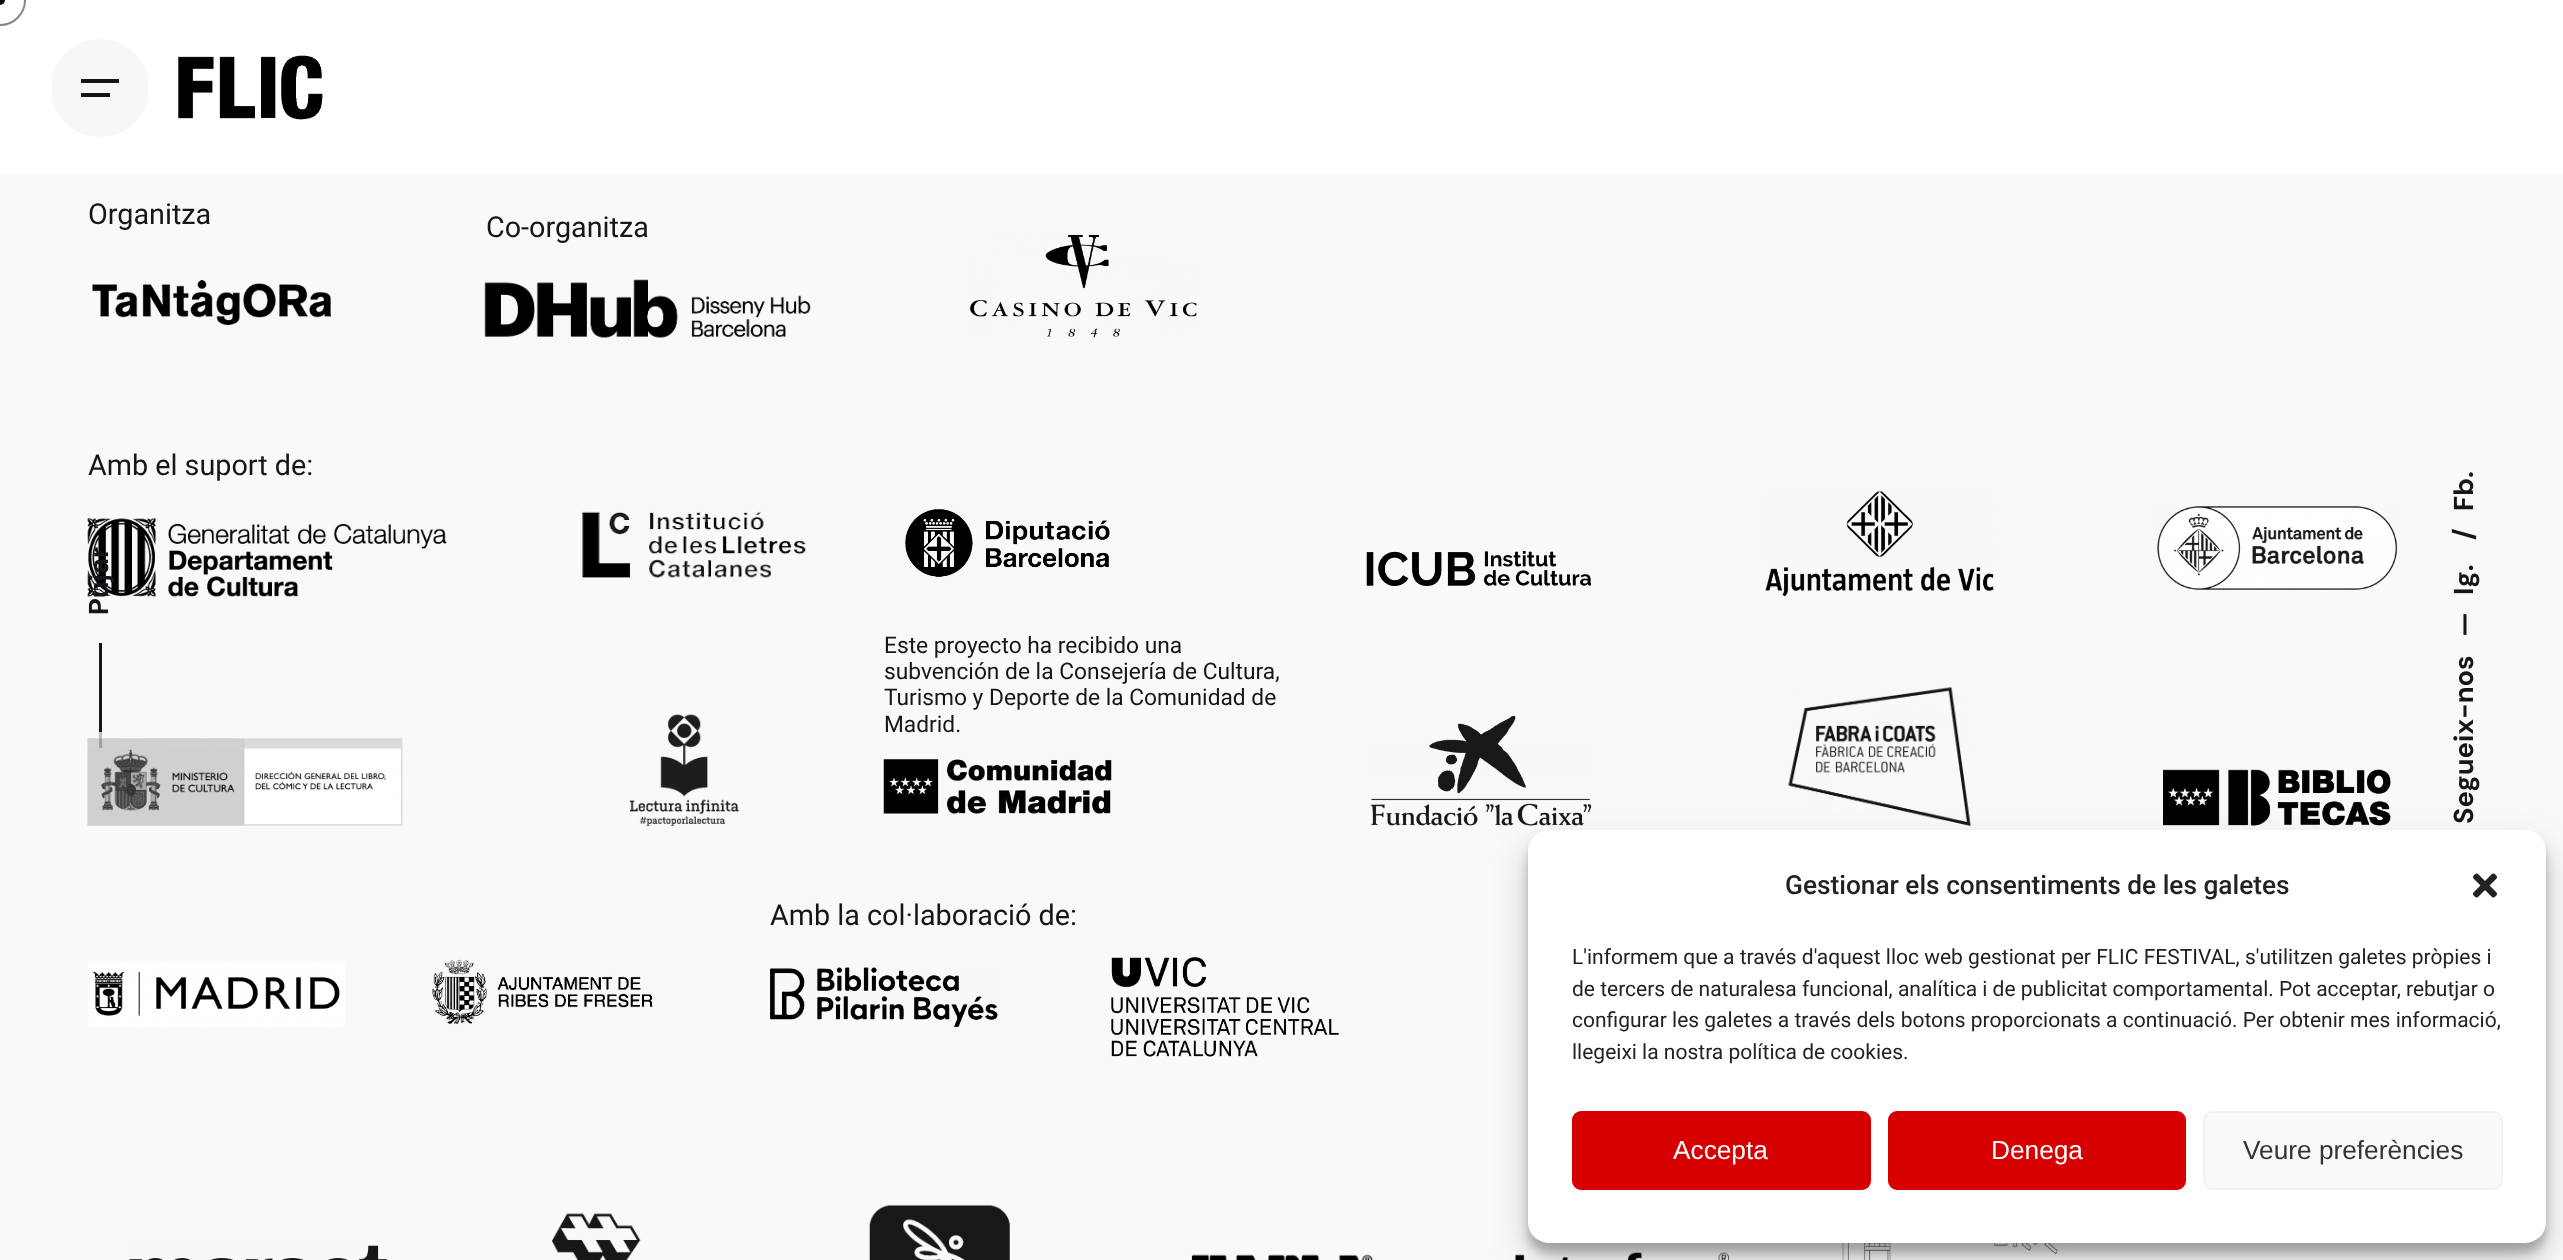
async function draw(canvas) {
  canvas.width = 2563
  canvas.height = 1260
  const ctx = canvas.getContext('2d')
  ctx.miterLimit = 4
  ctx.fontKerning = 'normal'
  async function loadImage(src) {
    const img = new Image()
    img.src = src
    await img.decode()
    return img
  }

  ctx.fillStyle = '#faf9fa'
  ctx.fillRect(0, 0, 2563, 1260)
  ctx.fillStyle = '#fff'
  ctx.fillRect(0, 0, 2563, 175)
  ctx.beginPath()
  ctx.arc(0, 0, 25, 0, 2 * Math.PI)
  ctx.strokeStyle = '#858585'
  ctx.lineWidth = 2
  ctx.stroke()
  ctx.fillStyle = '#0a0a0a'
  ctx.beginPath()
  ctx.arc(0, 0, 5, 0, 2 * Math.PI)
  ctx.fill()
  ctx.fillStyle = '#f7f6f8'
  ctx.beginPath()
  ctx.arc(100, 88, 49, 0, 2 * Math.PI)
  ctx.fill()
  ctx.fillStyle = '#161519'
  ctx.fillRect(81, 79, 38, 4)
  ctx.fillRect(81, 93, 29, 4)
  ctx.drawImage(await loadImage('image0.png'), 178, 55, 145, 65)
  ctx.font = '28.75px Roboto'
  ctx.fillText('Organitza', 88, 224)
  ctx.drawImage(await loadImage('image1.png'), 92, 280, 239, 45)
  ctx.fillText('Co-organitza', 486, 237)
  ctx.drawImage(await loadImage('image2.png'), 484, 279, 327, 59)
  ctx.drawImage(await loadImage('image3.png'), 970, 234, 227, 104)
  ctx.fillText('Amb el suport de:', 88, 475)
  ctx.drawImage(await loadImage('image4.png'), 87, 517, 360, 80)
  ctx.drawImage(await loadImage('image5.png'), 582, 511, 224, 67)
  ctx.drawImage(await loadImage('image6.png'), 905, 509, 205, 68)
  ctx.drawImage(await loadImage('image7.png'), 1366, 551, 225, 35)
  ctx.drawImage(await loadImage('image8.png'), 1765, 491, 229, 106)
  ctx.drawImage(await loadImage('image9.png'), 2157, 506, 241, 84)
  ctx.drawImage(await loadImage('image10.png'), 87, 738, 316, 88)
  ctx.drawImage(await loadImage('image11.png'), 630, 714, 109, 112)
  ctx.font = '22.75px Roboto'
  ctx.fillText('Este proyecto ha recibido una', 884, 653)
  ctx.fillText('subvención de la Consejería de Cultura,', 884, 679)
  ctx.fillText('Turismo y Deporte de la Comunidad de', 884, 705)
  ctx.fillText('Madrid.', 884, 732)
  ctx.drawImage(await loadImage('image12.png'), 883, 759, 229, 55)
  ctx.drawImage(await loadImage('image13.png'), 1370, 715, 222, 111)
  ctx.drawImage(await loadImage('image14.png'), 1788, 687, 183, 139)
  ctx.drawImage(await loadImage('image15.png'), 2163, 769, 228, 57)
  ctx.font = '28.75px Roboto'
  ctx.fillText('Amb la col·laboració de:', 770, 925)
  ctx.drawImage(await loadImage('image16.png'), 770, 967, 228, 60)
  ctx.drawImage(await loadImage('image17.png'), 88, 962, 257, 65)
  ctx.drawImage(await loadImage('image18.png'), 432, 959, 221, 66)
  ctx.drawImage(await loadImage('image19.png'), 1111, 957, 228, 100)
  ctx.drawImage(await loadImage('image20.png'), 129, 1245, 258, 15)
  ctx.drawImage(await loadImage('image21.png'), 552, 1213, 89, 47)
  ctx.drawImage(await loadImage('image22.png'), 869, 1205, 141, 55)
  ctx.drawImage(await loadImage('image23.png'), 1191, 1254, 182, 6)
  ctx.drawImage(await loadImage('image24.png'), 1515, 1252, 214, 8)
  ctx.drawImage(await loadImage('image25.png'), 1842, 1243, 228, 17)
  ctx.font = 'bold 27.25px DM Sans'
  ctx.save()
  ctx.translate(2473, 511)
  ctx.rotate(-90 * Math.PI / 180)
  ctx.fillText('Fb.', 0, 0)
  ctx.restore()
  ctx.save()
  ctx.translate(2473, 540)
  ctx.rotate(-90 * Math.PI / 180)
  ctx.fillText('/', 0, 0)
  ctx.restore()
  ctx.save()
  ctx.translate(2473, 595)
  ctx.rotate(-90 * Math.PI / 180)
  ctx.fillText('Ig.', 0, 0)
  ctx.restore()
  ctx.save()
  ctx.translate(2473, 637)
  ctx.rotate(-90 * Math.PI / 180)
  ctx.fillText('—', 0, 0)
  ctx.restore()
  ctx.save()
  ctx.translate(2473, 824)
  ctx.rotate(-90 * Math.PI / 180)
  ctx.fillText('Segueix-nos', 0, 0)
  ctx.restore()
  ctx.save()
  ctx.translate(108, 615)
  ctx.rotate(-90 * Math.PI / 180)
  ctx.fillText('Pujar', 0, 0)
  ctx.restore()
  ctx.fillRect(99, 643, 3, 89)
  ctx.fillStyle = '#16151940'
  ctx.fillRect(99, 732, 3, 16)
  ctx.fillStyle = '#0000003b'
  ctx.filter = 'blur(5px)'
  ctx.beginPath()
  ctx.roundRect(1528, 840, 1018, 413, 21)
  ctx.fill()
  ctx.filter = 'none'
  ctx.fillStyle = '#00000030'
  ctx.filter = 'blur(17.5px)'
  ctx.beginPath()
  ctx.roundRect(1528, 847, 1018, 413, 21)
  ctx.fill()
  ctx.filter = 'none'
  ctx.fillStyle = '#fff'
  ctx.beginPath()
  ctx.roundRect(1532.5, 834.5, 1009, 404, 16.5)
  ctx.fill()
  ctx.strokeStyle = '#fff'
  ctx.lineWidth = 9
  ctx.stroke()
  ctx.font = '500 26.25px Roboto'
  ctx.fillStyle = '#222'
  ctx.fillText('Gestionar els consentiments de les galetes', 1785, 894)
  ctx.drawImage(await loadImage('image26.png'), 2473, 873, 24, 25)
  ctx.font = '21px Roboto'
  ctx.fillText('L\'informem que a través d\'aquest lloc web gestionat per FLIC FESTIVAL, s\'utilitzen galetes pròpies i', 1572, 964)
  ctx.fillText('de tercers de naturalesa funcional, analítica i de publicitat comportamental. Pot acceptar, rebutjar o', 1572, 996)
  ctx.fillText('configurar les galetes a través dels botons proporcionats a continuació. Per obtenir mes informació,', 1572, 1027)
  ctx.fillText('llegeixi la nostra política de cookies.', 1572, 1059)
  ctx.fillStyle = '#d60000'
  ctx.beginPath()
  ctx.roundRect(1573, 1112, 297, 77, 8)
  ctx.fill()
  ctx.strokeStyle = '#d60000'
  ctx.lineWidth = 2
  ctx.stroke()
  ctx.font = '26.25px Liberation Sans'
  ctx.fillStyle = '#fff'
  ctx.fillText('Accepta', 1673, 1159)
  ctx.fillStyle = '#d60000'
  ctx.beginPath()
  ctx.roundRect(1889, 1112, 296, 77, 8)
  ctx.fill()
  ctx.stroke()
  ctx.fillStyle = '#fff'
  ctx.fillText('Denega', 1991, 1159)
  ctx.fillStyle = '#f9f9f9'
  ctx.beginPath()
  ctx.roundRect(2204, 1112, 298, 77, 8)
  ctx.fill()
  ctx.strokeStyle = '#f2f2f2'
  ctx.stroke()
  ctx.fillStyle = '#333'
  ctx.fillText('Veure preferències', 2243, 1159)
}

draw(document.querySelector('canvas'))
